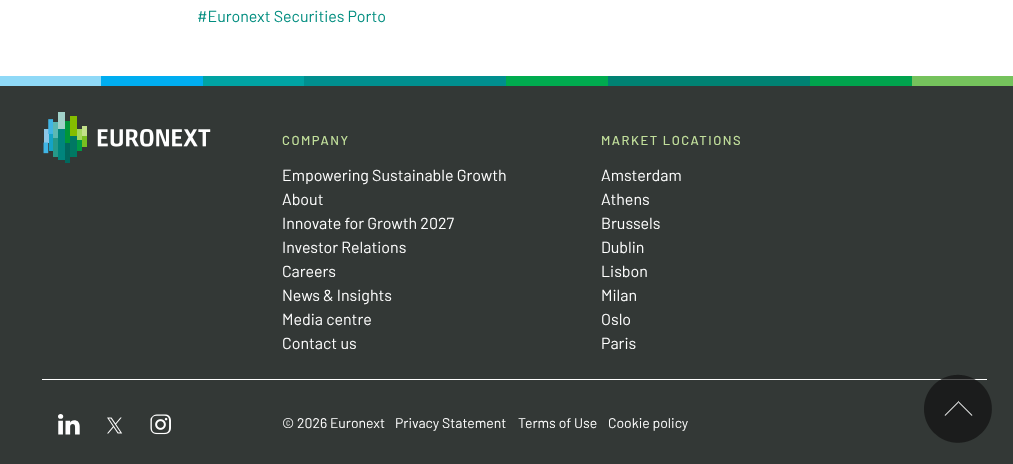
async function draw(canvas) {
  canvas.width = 1013
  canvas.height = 464
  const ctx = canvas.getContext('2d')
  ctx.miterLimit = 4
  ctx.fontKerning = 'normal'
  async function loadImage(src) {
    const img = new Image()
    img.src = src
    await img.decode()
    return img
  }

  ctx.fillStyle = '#fff'
  ctx.fillRect(0, 0, 1013, 464)
  ctx.font = '16px Barlow'
  ctx.fillStyle = '#008d7f'
  ctx.fillText('#Euronext Securities Porto', 197, 22)
  ctx.fillStyle = '#8fd9f7'
  ctx.fillRect(0, 76, 101, 10)
  ctx.fillStyle = '#00adf0'
  ctx.fillRect(101, 76, 102, 10)
  ctx.fillStyle = '#00a3a3'
  ctx.fillRect(203, 76, 101, 10)
  ctx.fillStyle = '#008f8f'
  ctx.fillRect(304, 76, 202, 10)
  ctx.fillStyle = '#00ab4f'
  ctx.fillRect(506, 76, 102, 10)
  ctx.fillStyle = '#008273'
  ctx.fillRect(608, 76, 202, 10)
  ctx.fillStyle = '#00a34d'
  ctx.fillRect(810, 76, 102, 10)
  ctx.fillStyle = '#75c25c'
  ctx.fillRect(912, 76, 101, 10)
  ctx.fillStyle = '#333836'
  ctx.fillRect(0, 86, 1013, 378)
  ctx.drawImage(await loadImage('image0.png'), 43, 112, 168, 51)
  ctx.letterSpacing = '1.5px'
  ctx.font = '500 13px Barlow'
  ctx.fillStyle = '#c1de9b'
  ctx.fillText('COMPANY', 282, 145)
  ctx.letterSpacing = '0px'
  ctx.font = '16px Barlow'
  ctx.fillStyle = '#fff'
  ctx.fillText('Empowering Sustainable Growth', 282, 181)
  ctx.fillText('About', 282, 205)
  ctx.fillText('Innovate for Growth 2027', 282, 229)
  ctx.fillText('Investor Relations', 282, 253)
  ctx.fillText('Careers', 282, 277)
  ctx.fillText('News & Insights', 282, 301)
  ctx.fillText('Media centre', 282, 325)
  ctx.fillText('Contact us', 282, 349)
  ctx.letterSpacing = '1.5px'
  ctx.font = '500 13px Barlow'
  ctx.fillStyle = '#c1de9b'
  ctx.fillText('MARKET LOCATIONS', 601, 145)
  ctx.letterSpacing = '0px'
  ctx.font = '16px Barlow'
  ctx.fillStyle = '#fff'
  ctx.fillText('Amsterdam', 601, 181)
  ctx.fillText('Athens', 601, 205)
  ctx.fillText('Brussels', 601, 229)
  ctx.fillText('Dublin', 601, 253)
  ctx.fillText('Lisbon', 601, 277)
  ctx.fillText('Milan', 601, 301)
  ctx.fillText('Oslo', 601, 325)
  ctx.fillText('Paris', 601, 349)
  ctx.fillRect(42, 379, 945, 1)
  ctx.drawImage(await loadImage('image1.png'), 58, 414, 22, 21)
  ctx.drawImage(await loadImage('image2.png'), 107, 417, 16, 17)
  ctx.drawImage(await loadImage('image3.png'), 150, 414, 21, 21)
  ctx.font = '14px Barlow'
  ctx.fillText('© 2026 Euronext', 282, 428)
  ctx.fillText('Privacy Statement', 395, 428)
  ctx.fillText('Terms of Use', 518, 428)
  ctx.fillText('Cookie policy', 608, 428)
  ctx.drawImage(await loadImage('image4.png'), 924, 374, 68, 69)
}

draw(document.querySelector('canvas'))
